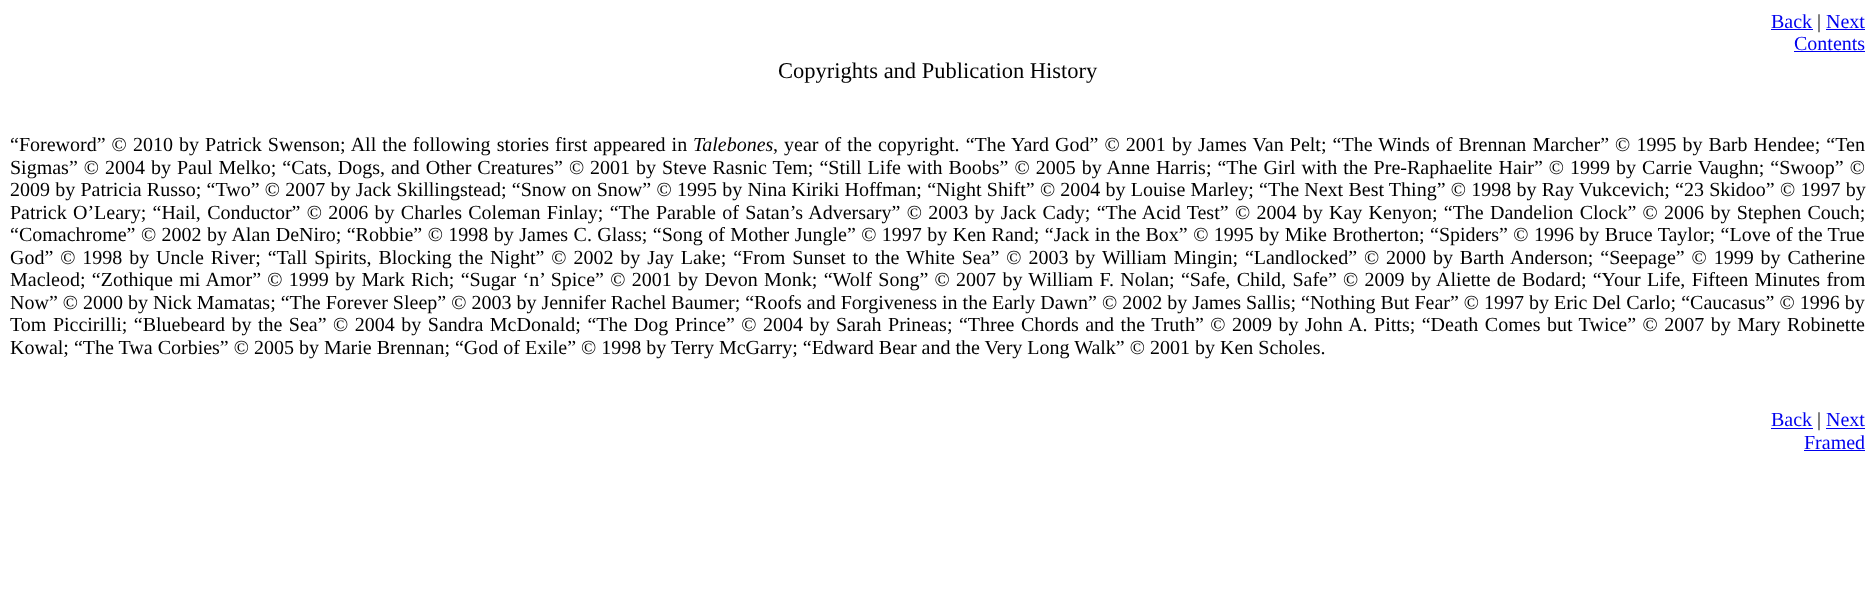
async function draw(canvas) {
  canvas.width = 1875
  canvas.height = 601
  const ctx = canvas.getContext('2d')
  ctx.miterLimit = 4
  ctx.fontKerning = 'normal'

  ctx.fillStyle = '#fff'
  ctx.fillRect(0, 0, 1875, 601)
  ctx.font = '20px Liberation Serif'
  ctx.fillStyle = '#00e'
  ctx.fillText('Back', 1771, 28)
  ctx.fillRect(1771, 29, 42, 1)
  ctx.fillStyle = '#000'
  ctx.fillText('|', 1817, 28)
  ctx.fillStyle = '#00e'
  ctx.fillText('Next', 1826, 28)
  ctx.fillRect(1826, 29, 39, 1)
  ctx.fillText('Contents', 1794, 50)
  ctx.fillRect(1794, 51, 71, 1)
  ctx.font = '22.5px Liberation Serif'
  ctx.fillStyle = '#000'
  ctx.fillText('Copyrights and Publication History', 778, 78)
  ctx.wordSpacing = '1.1px'
  ctx.font = '20px Liberation Serif'
  ctx.fillText('“Foreword” © 2010 by Patrick Swenson; All the following stories first appeared in', 10, 151)
  ctx.wordSpacing = '0px'
  ctx.font = 'italic 20px Liberation Serif'
  ctx.fillText('Talebones', 693, 151)
  ctx.wordSpacing = '1.1px'
  ctx.font = '20px Liberation Serif'
  ctx.fillText(', year of the copyright. “The Yard God” © 2001 by James Van Pelt; “The Winds of Brennan Marcher” © 1995 by Barb Hendee; “Ten', 773, 151)
  ctx.wordSpacing = '1px'
  ctx.fillText('Sigmas” © 2004 by Paul Melko; “Cats, Dogs, and Other Creatures” © 2001 by Steve Rasnic Tem; “Still Life with Boobs” © 2005 by Anne Harris; “The Girl with the Pre-Raphaelite Hair” © 1999 by Carrie Vaughn; “Swoop” ©', 10, 174)
  ctx.wordSpacing = '0.25px'
  ctx.fillText('2009 by Patricia Russo; “Two” © 2007 by Jack Skillingstead; “Snow on Snow” © 1995 by Nina Kiriki Hoffman; “Night Shift” © 2004 by Louise Marley; “The Next Best Thing” © 1998 by Ray Vukcevich; “23 Skidoo” © 1997 by', 10, 196)
  ctx.wordSpacing = '1.3px'
  ctx.fillText('Patrick O’Leary; “Hail, Conductor” © 2006 by Charles Coleman Finlay; “The Parable of Satan’s Adversary” © 2003 by Jack Cady; “The Acid Test” © 2004 by Kay Kenyon; “The Dandelion Clock” © 2006 by Stephen Couch;', 10, 219)
  ctx.wordSpacing = '0.45px'
  ctx.fillText('“Comachrome” © 2002 by Alan DeNiro; “Robbie” © 1998 by James C. Glass; “Song of Mother Jungle” © 1997 by Ken Rand; “Jack in the Box” © 1995 by Mike Brotherton; “Spiders” © 1996 by Bruce Taylor; “Love of the True', 10, 241)
  ctx.wordSpacing = '1.9px'
  ctx.fillText('God” © 1998 by Uncle River; “Tall Spirits, Blocking the Night” © 2002 by Jay Lake; “From Sunset to the White Sea” © 2003 by William Mingin; “Landlocked” © 2000 by Barth Anderson; “Seepage” © 1999 by Catherine', 10, 264)
  ctx.wordSpacing = '1.3px'
  ctx.fillText('Macleod; “Zothique mi Amor” © 1999 by Mark Rich; “Sugar ‘n’ Spice” © 2001 by Devon Monk; “Wolf Song” © 2007 by William F. Nolan; “Safe, Child, Safe” © 2009 by Aliette de Bodard; “Your Life, Fifteen Minutes from', 10, 286)
  ctx.wordSpacing = '0px'
  ctx.fillText('Now” © 2000 by Nick Mamatas; “The Forever Sleep” © 2003 by Jennifer Rachel Baumer; “Roofs and Forgiveness in the Early Dawn” © 2002 by James Sallis; “Nothing But Fear” © 1997 by Eric Del Carlo; “Caucasus” © 1996 by', 10, 309)
  ctx.wordSpacing = '1.5px'
  ctx.fillText('Tom Piccirilli; “Bluebeard by the Sea” © 2004 by Sandra McDonald; “The Dog Prince” © 2004 by Sarah Prineas; “Three Chords and the Truth” © 2009 by John A. Pitts; “Death Comes but Twice” © 2007 by Mary Robinette', 10, 331)
  ctx.wordSpacing = '0px'
  ctx.fillText('Kowal; “The Twa Corbies” © 2005 by Marie Brennan; “God of Exile” © 1998 by Terry McGarry; “Edward Bear and the Very Long Walk” © 2001 by Ken Scholes.', 10, 354)
  ctx.fillStyle = '#00e'
  ctx.fillText('Back', 1771, 426)
  ctx.fillRect(1771, 428, 42, 1)
  ctx.fillStyle = '#000'
  ctx.fillText('|', 1817, 426)
  ctx.fillStyle = '#00e'
  ctx.fillText('Next', 1826, 426)
  ctx.fillRect(1826, 428, 39, 1)
  ctx.fillText('Framed', 1804, 449)
  ctx.fillRect(1804, 450, 61, 1)
}

draw(document.querySelector('canvas'))
